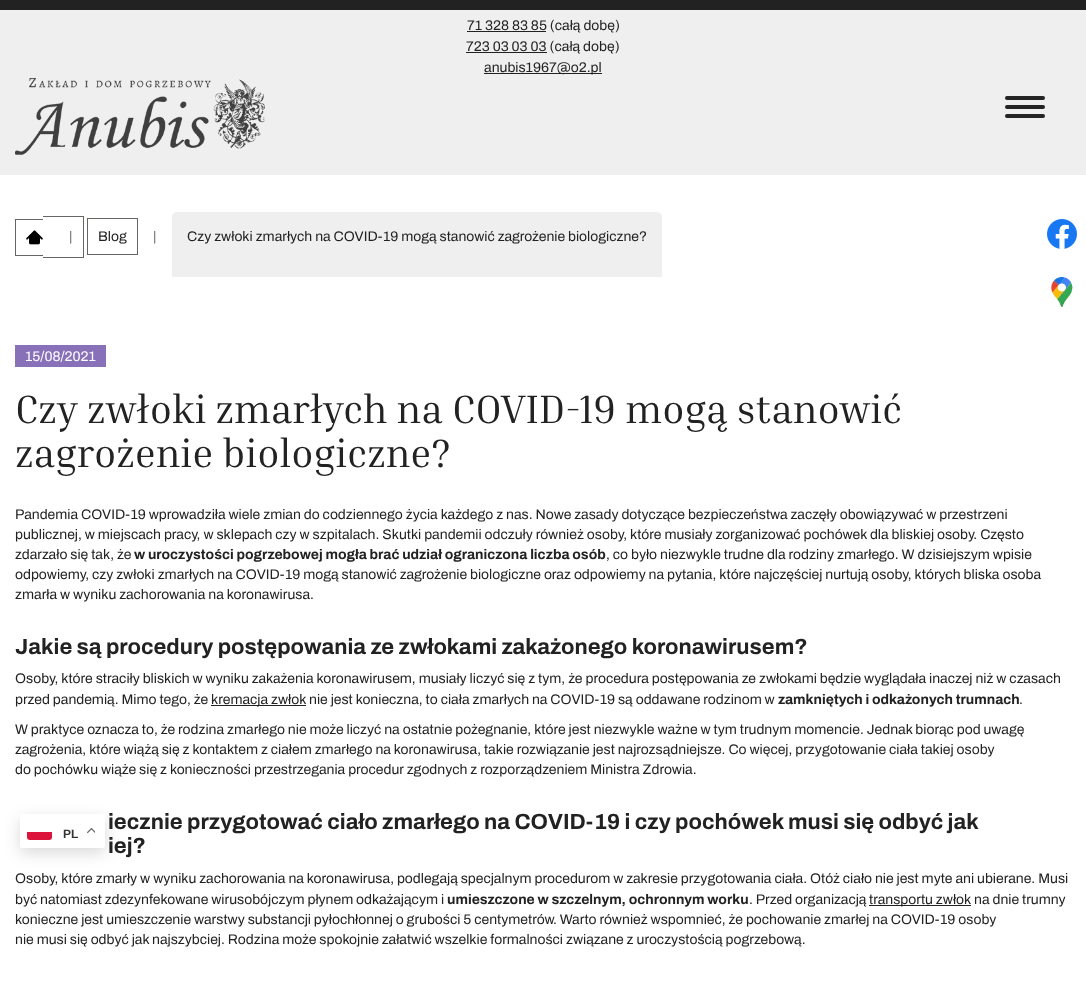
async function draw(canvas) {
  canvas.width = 1086
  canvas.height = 1004
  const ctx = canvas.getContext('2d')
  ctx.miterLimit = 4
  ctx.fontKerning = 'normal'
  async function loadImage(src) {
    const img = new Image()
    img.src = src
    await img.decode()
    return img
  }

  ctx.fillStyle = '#fff'
  ctx.fillRect(0, 0, 1086, 1004)
  ctx.fillStyle = '#efefef'
  ctx.fillRect(0, 10, 1086, 165)
  ctx.fillStyle = '#222'
  ctx.fillRect(0, 0, 1086, 10)
  ctx.fillRect(467, 31, 79, 1)
  ctx.font = '14px Archivo'
  ctx.fillText('71 328 83 85 (całą dobę)', 467, 30)
  ctx.fillRect(466, 52, 81, 1)
  ctx.fillText('723 03 03 03 (całą dobę)', 466, 51)
  ctx.fillRect(484, 73, 118, 1)
  ctx.fillText('anubis1967@o2.pl', 484, 72)
  ctx.drawImage(await loadImage('image0.png'), 15, 78, 250, 77)
  ctx.fillStyle = '#242424'
  ctx.beginPath()
  ctx.roundRect(1005, 96, 40, 4, 2)
  ctx.fill()
  ctx.beginPath()
  ctx.roundRect(1005, 105, 40, 4, 2)
  ctx.fill()
  ctx.beginPath()
  ctx.roundRect(1005, 114, 40, 4, 2)
  ctx.fill()
  ctx.fillStyle = '#00000026'
  ctx.filter = 'blur(7.5px)'
  ctx.beginPath()
  ctx.roundRect(20, 819, 85, 34, 2)
  ctx.fill()
  ctx.filter = 'none'
  ctx.fillStyle = '#fff'
  ctx.beginPath()
  ctx.roundRect(20, 814, 85, 34, 2)
  ctx.fill()
  ctx.fillStyle = '#dc143c'
  ctx.beginPath()
  ctx.roundRect(27, 832, 25, 8, [0, 0, 3, 3])
  ctx.fill()
  ctx.font = 'bold 12px Liberation Sans'
  ctx.fillStyle = '#333'
  ctx.fillText('PL', 63, 838)
  ctx.drawImage(await loadImage('image1.png'), 87, 827, 8, 7)
  ctx.drawImage(await loadImage('image2.png'), 1047, 219, 30, 30)
  ctx.drawImage(await loadImage('image3.png'), 1051, 277, 22, 30)
  ctx.fillStyle = '#686662'
  ctx.fillRect(43, 216, 41, 1)
  ctx.fillRect(15, 219, 28, 1)
  ctx.fillRect(83, 216, 1, 42)
  ctx.fillRect(15, 255, 28, 1)
  ctx.fillRect(15, 219, 1, 37)
  ctx.drawImage(await loadImage('image4.png'), 26, 230, 17, 15)
  ctx.fillRect(43, 257, 41, 1)
  ctx.font = '14px Archivo'
  ctx.fillText('|', 69, 241)
  ctx.strokeStyle = '#686662'
  ctx.strokeRect(87.5, 218.5, 50, 36)
  ctx.fillStyle = '#222'
  ctx.fillText('Blog', 98, 241)
  ctx.fillStyle = '#686662'
  ctx.fillText('|', 153, 241)
  ctx.fillStyle = '#efefef'
  ctx.beginPath()
  ctx.roundRect(172, 212, 490, 65, [5, 5, 0, 0])
  ctx.fill()
  ctx.fillStyle = '#222'
  ctx.fillText('Czy zwłoki zmarłych na COVID-19 mogą stanowić zagrożenie biologiczne?', 187, 241)
  ctx.fillStyle = '#8871b8'
  ctx.fillRect(15, 345, 91, 22)
  ctx.fillStyle = '#fff'
  ctx.fillText('15/08/2021', 25, 361)
  ctx.font = '40px Inria Serif'
  ctx.fillStyle = '#222'
  ctx.fillText('Czy zwłoki zmarłych na COVID-19 mogą stanowić', 15, 423)
  ctx.fillText('zagrożenie biologiczne?', 15, 467)
  ctx.font = '14px Archivo'
  ctx.fillText('Pandemia COVID-19 wprowadziła wiele zmian do codziennego życia każdego z nas. Nowe zasady dotyczące bezpieczeństwa zaczęły obowiązywać w przestrzeni', 15, 519)
  ctx.fillText('publicznej, w miejscach pracy, w sklepach czy w szpitalach. Skutki pandemii odczuły również osoby, które musiały zorganizować pochówek dla bliskiej osoby. Często', 15, 539)
  ctx.fillText('zdarzało się tak, że', 15, 559)
  ctx.font = 'bold 14px Archivo'
  ctx.fillText('w uroczystości pogrzebowej mogła brać udział ograniczona liczba osób', 134, 559)
  ctx.font = '14px Archivo'
  ctx.fillText(', co było niezwykle trudne dla rodziny zmarłego. W dzisiejszym wpisie', 606, 559)
  ctx.fillText('odpowiemy, czy zwłoki zmarłych na COVID-19 mogą stanowić zagrożenie biologiczne oraz odpowiemy na pytania, które najczęściej nurtują osoby, których bliska osoba', 15, 579)
  ctx.fillText('zmarła w wyniku zachorowania na koronawirusa.', 15, 599)
  ctx.font = 'bold 22px Archivo'
  ctx.fillText('Jakie są procedury postępowania ze zwłokami zakażonego koronawirusem?', 15, 654)
  ctx.font = '14px Archivo'
  ctx.fillText('Osoby, które straciły bliskich w wyniku zakażenia koronawirusem, musiały liczyć się z tym, że procedura postępowania ze zwłokami będzie wyglądała inaczej niż w czasach', 15, 683)
  ctx.fillText('przed pandemią. Mimo tego, że', 15, 704)
  ctx.fillRect(211, 705, 95, 1)
  ctx.fillText('kremacja zwłok', 211, 704)
  ctx.fillText('nie jest konieczna, to ciała zmarłych na COVID-19 są oddawane rodzinom w', 309, 704)
  ctx.font = 'bold 14px Archivo'
  ctx.fillText('zamkniętych i odkażonych trumnach', 778, 704)
  ctx.font = '14px Archivo'
  ctx.fillText('.', 1019, 704)
  ctx.fillText('W praktyce oznacza to, że rodzina zmarłego nie może liczyć na ostatnie pożegnanie, które jest niezwykle ważne w tym trudnym momencie. Jednak biorąc pod uwagę', 15, 734)
  ctx.fillText('zagrożenia, które wiążą się z kontaktem z ciałem zmarłego na koronawirusa, takie rozwiązanie jest najrozsądniejsze. Co więcej, przygotowanie ciała takiej osoby', 15, 754)
  ctx.fillText('do pochówku wiąże się z konieczności przestrzegania procedur zgodnych z rozporządzeniem Ministra Zdrowia.', 15, 774)
  ctx.font = 'bold 22px Archivo'
  ctx.fillText('iecznie przygotować ciało zmarłego na COVID-19 i czy pochówek musi się odbyć jak', 108, 829)
  ctx.fillText('iej?', 108, 853)
  ctx.font = '14px Archivo'
  ctx.fillText('Osoby, które zmarły w wyniku zachorowania na koronawirusa, podlegają specjalnym procedurom w zakresie przygotowania ciała. Otóż ciało nie jest myte ani ubierane. Musi', 15, 883)
  ctx.fillText('być natomiast zdezynfekowane wirusobójczym płynem odkażającym i', 15, 904)
  ctx.font = 'bold 14px Archivo'
  ctx.fillText('umieszczone w szczelnym, ochronnym worku', 447, 904)
  ctx.font = '14px Archivo'
  ctx.fillText('. Przed organizacją', 749, 904)
  ctx.fillRect(869, 905, 102, 1)
  ctx.fillText('transportu zwłok', 869, 904)
  ctx.fillText('na dnie trumny', 974, 904)
  ctx.fillText('konieczne jest umieszczenie warstwy substancji pyłochłonnej o grubości 5 centymetrów. Warto również wspomnieć, że pochowanie zmarłej na COVID-19 osoby', 15, 924)
  ctx.fillText('nie musi się odbyć jak najszybciej. Rodzina może spokojnie załatwić wszelkie formalności związane z uroczystością pogrzebową.', 15, 944)
}

draw(document.querySelector('canvas'))
